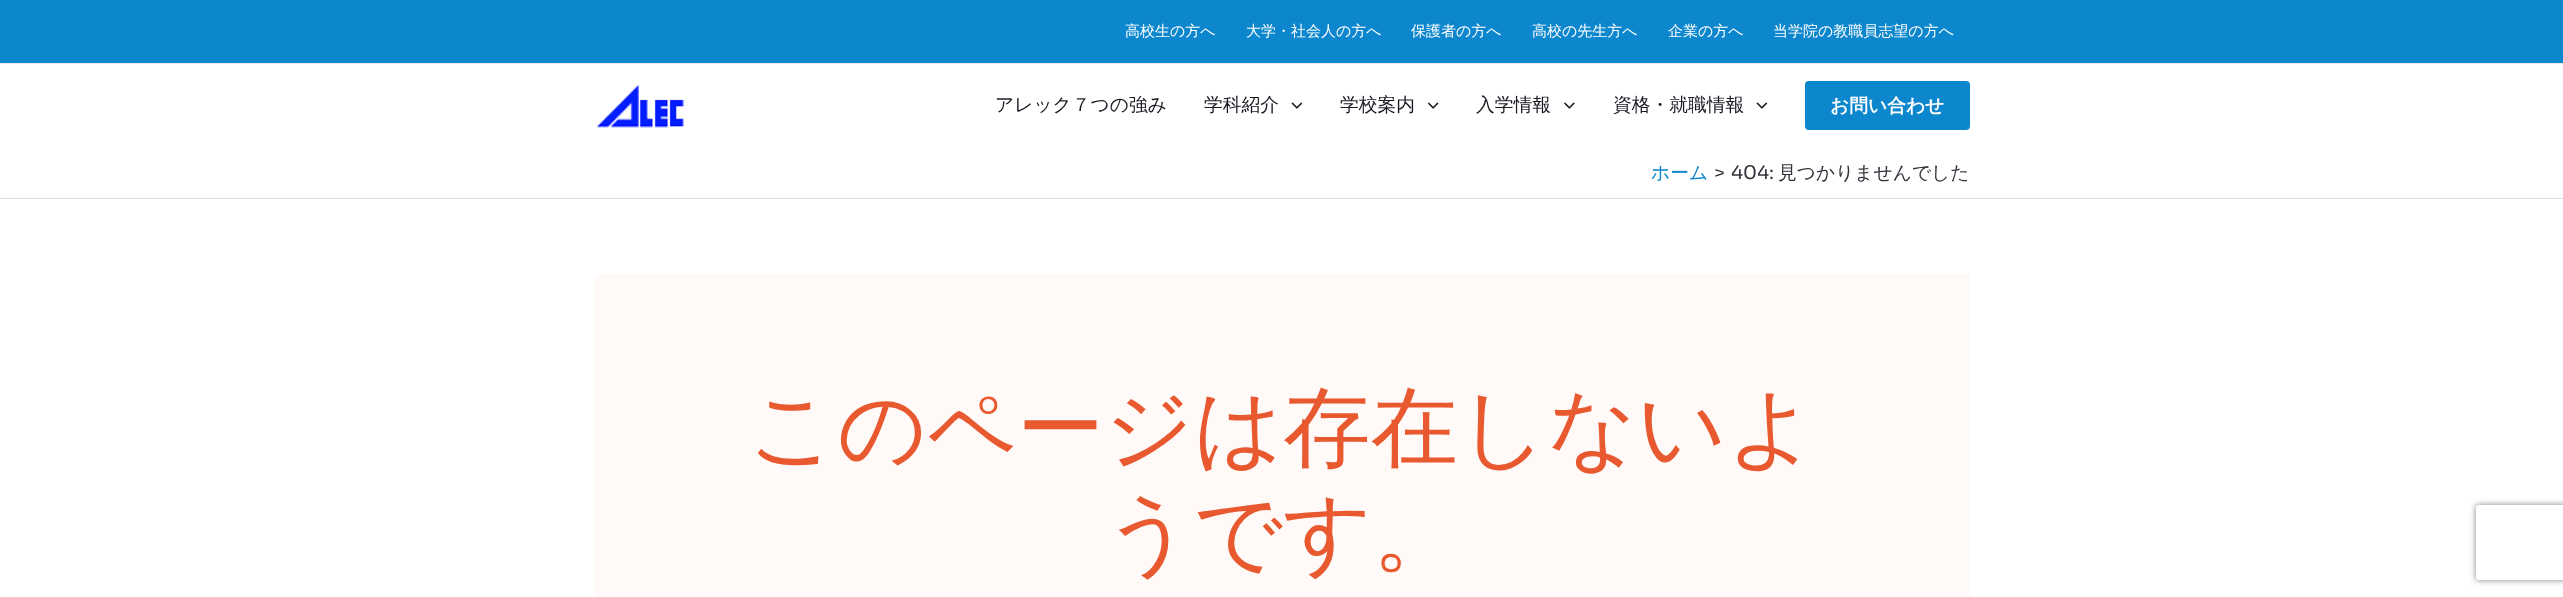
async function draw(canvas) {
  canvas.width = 2563
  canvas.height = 597
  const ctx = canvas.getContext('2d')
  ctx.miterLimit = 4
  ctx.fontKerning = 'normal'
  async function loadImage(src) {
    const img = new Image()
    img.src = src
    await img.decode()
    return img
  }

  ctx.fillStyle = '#fff'
  ctx.fillRect(0, 0, 2563, 597)
  ctx.fillStyle = '#0c86cc'
  ctx.fillRect(0, 0, 2563, 63)
  ctx.fillStyle = '#eaeaea'
  ctx.fillRect(0, 63, 2563, 1)
  ctx.font = '500 15px WenQuanYi Zen Hei'
  ctx.fillStyle = '#fff'
  ctx.fillText('高校生の方へ', 1125, 36)
  ctx.fillText('大学・社会人の方へ', 1246, 36)
  ctx.fillText('保護者の方へ', 1411, 36)
  ctx.fillText('高校の先生方へ', 1532, 36)
  ctx.fillText('企業の方へ', 1668, 36)
  ctx.fillText('当学院の教職員志望の方へ', 1773, 36)
  ctx.drawImage(await loadImage('image0.png'), 597, 82, 88, 46)
  ctx.font = '500 18.75px WenQuanYi Zen Hei'
  ctx.fillStyle = '#171921'
  ctx.fillText('アレック７つの強み', 995, 111)
  ctx.fillText('学科紹介', 1204, 111)
  ctx.drawImage(await loadImage('image1.png'), 1291, 102, 12, 7)
  ctx.fillText('学校案内', 1340, 111)
  ctx.drawImage(await loadImage('image2.png'), 1428, 102, 11, 7)
  ctx.fillText('入学情報', 1476, 111)
  ctx.drawImage(await loadImage('image3.png'), 1564, 102, 11, 7)
  ctx.fillText('資格・就職情報', 1613, 111)
  ctx.drawImage(await loadImage('image1.png'), 1756, 102, 12, 7)
  ctx.fillStyle = '#0c86cc'
  ctx.beginPath()
  ctx.roundRect(1805, 81, 165, 49, 4)
  ctx.fill()
  ctx.font = 'bold 18.75px WenQuanYi Zen Hei'
  ctx.fillStyle = '#fff'
  ctx.fillText('お問い合わせ', 1830, 112)
  ctx.fillStyle = '#ddd'
  ctx.fillRect(0, 198, 2563, 1)
  ctx.font = '500 18.75px WenQuanYi Zen Hei'
  ctx.fillStyle = '#0c86cc'
  ctx.fillText('ホーム', 1651, 179)
  ctx.font = '18.75px Sora'
  ctx.fillStyle = '#30333a'
  ctx.fillText('>', 1714, 179)
  ctx.fillText('404:', 1731, 179)
  ctx.font = '500 18.75px WenQuanYi Zen Hei'
  ctx.fillText('見つかりませんでした', 1778, 179)
  ctx.fillStyle = '#fffaf8'
  ctx.fillRect(595, 274, 1375, 323)
  ctx.font = '500 87.5px WenQuanYi Zen Hei'
  ctx.fillStyle = '#e95930'
  ctx.fillText('このページは存在しないよ', 748, 458)
  ctx.fillText('うです。', 1104, 563)
  ctx.save()
  ctx.beginPath()
  ctx.moveTo(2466, 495)
  ctx.lineTo(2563, 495)
  ctx.lineTo(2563, 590)
  ctx.lineTo(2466, 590)
  ctx.closePath()
  ctx.moveTo(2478.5, 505)
  ctx.lineTo(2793.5, 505)
  ctx.bezierCurveTo(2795, 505, 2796, 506, 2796, 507.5)
  ctx.lineTo(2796, 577.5)
  ctx.bezierCurveTo(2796, 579, 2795, 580, 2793.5, 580)
  ctx.lineTo(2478.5, 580)
  ctx.bezierCurveTo(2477, 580, 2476, 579, 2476, 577.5)
  ctx.lineTo(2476, 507.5)
  ctx.bezierCurveTo(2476, 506, 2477, 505, 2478.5, 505)
  ctx.closePath()
  ctx.clip('evenodd')
  ctx.fillStyle = '#808080'
  ctx.filter = 'blur(3px)'
  ctx.beginPath()
  ctx.roundRect(2476, 505, 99, 75, 2.5)
  ctx.fill()
  ctx.filter = 'none'
  ctx.restore()
}

draw(document.querySelector('canvas'))
